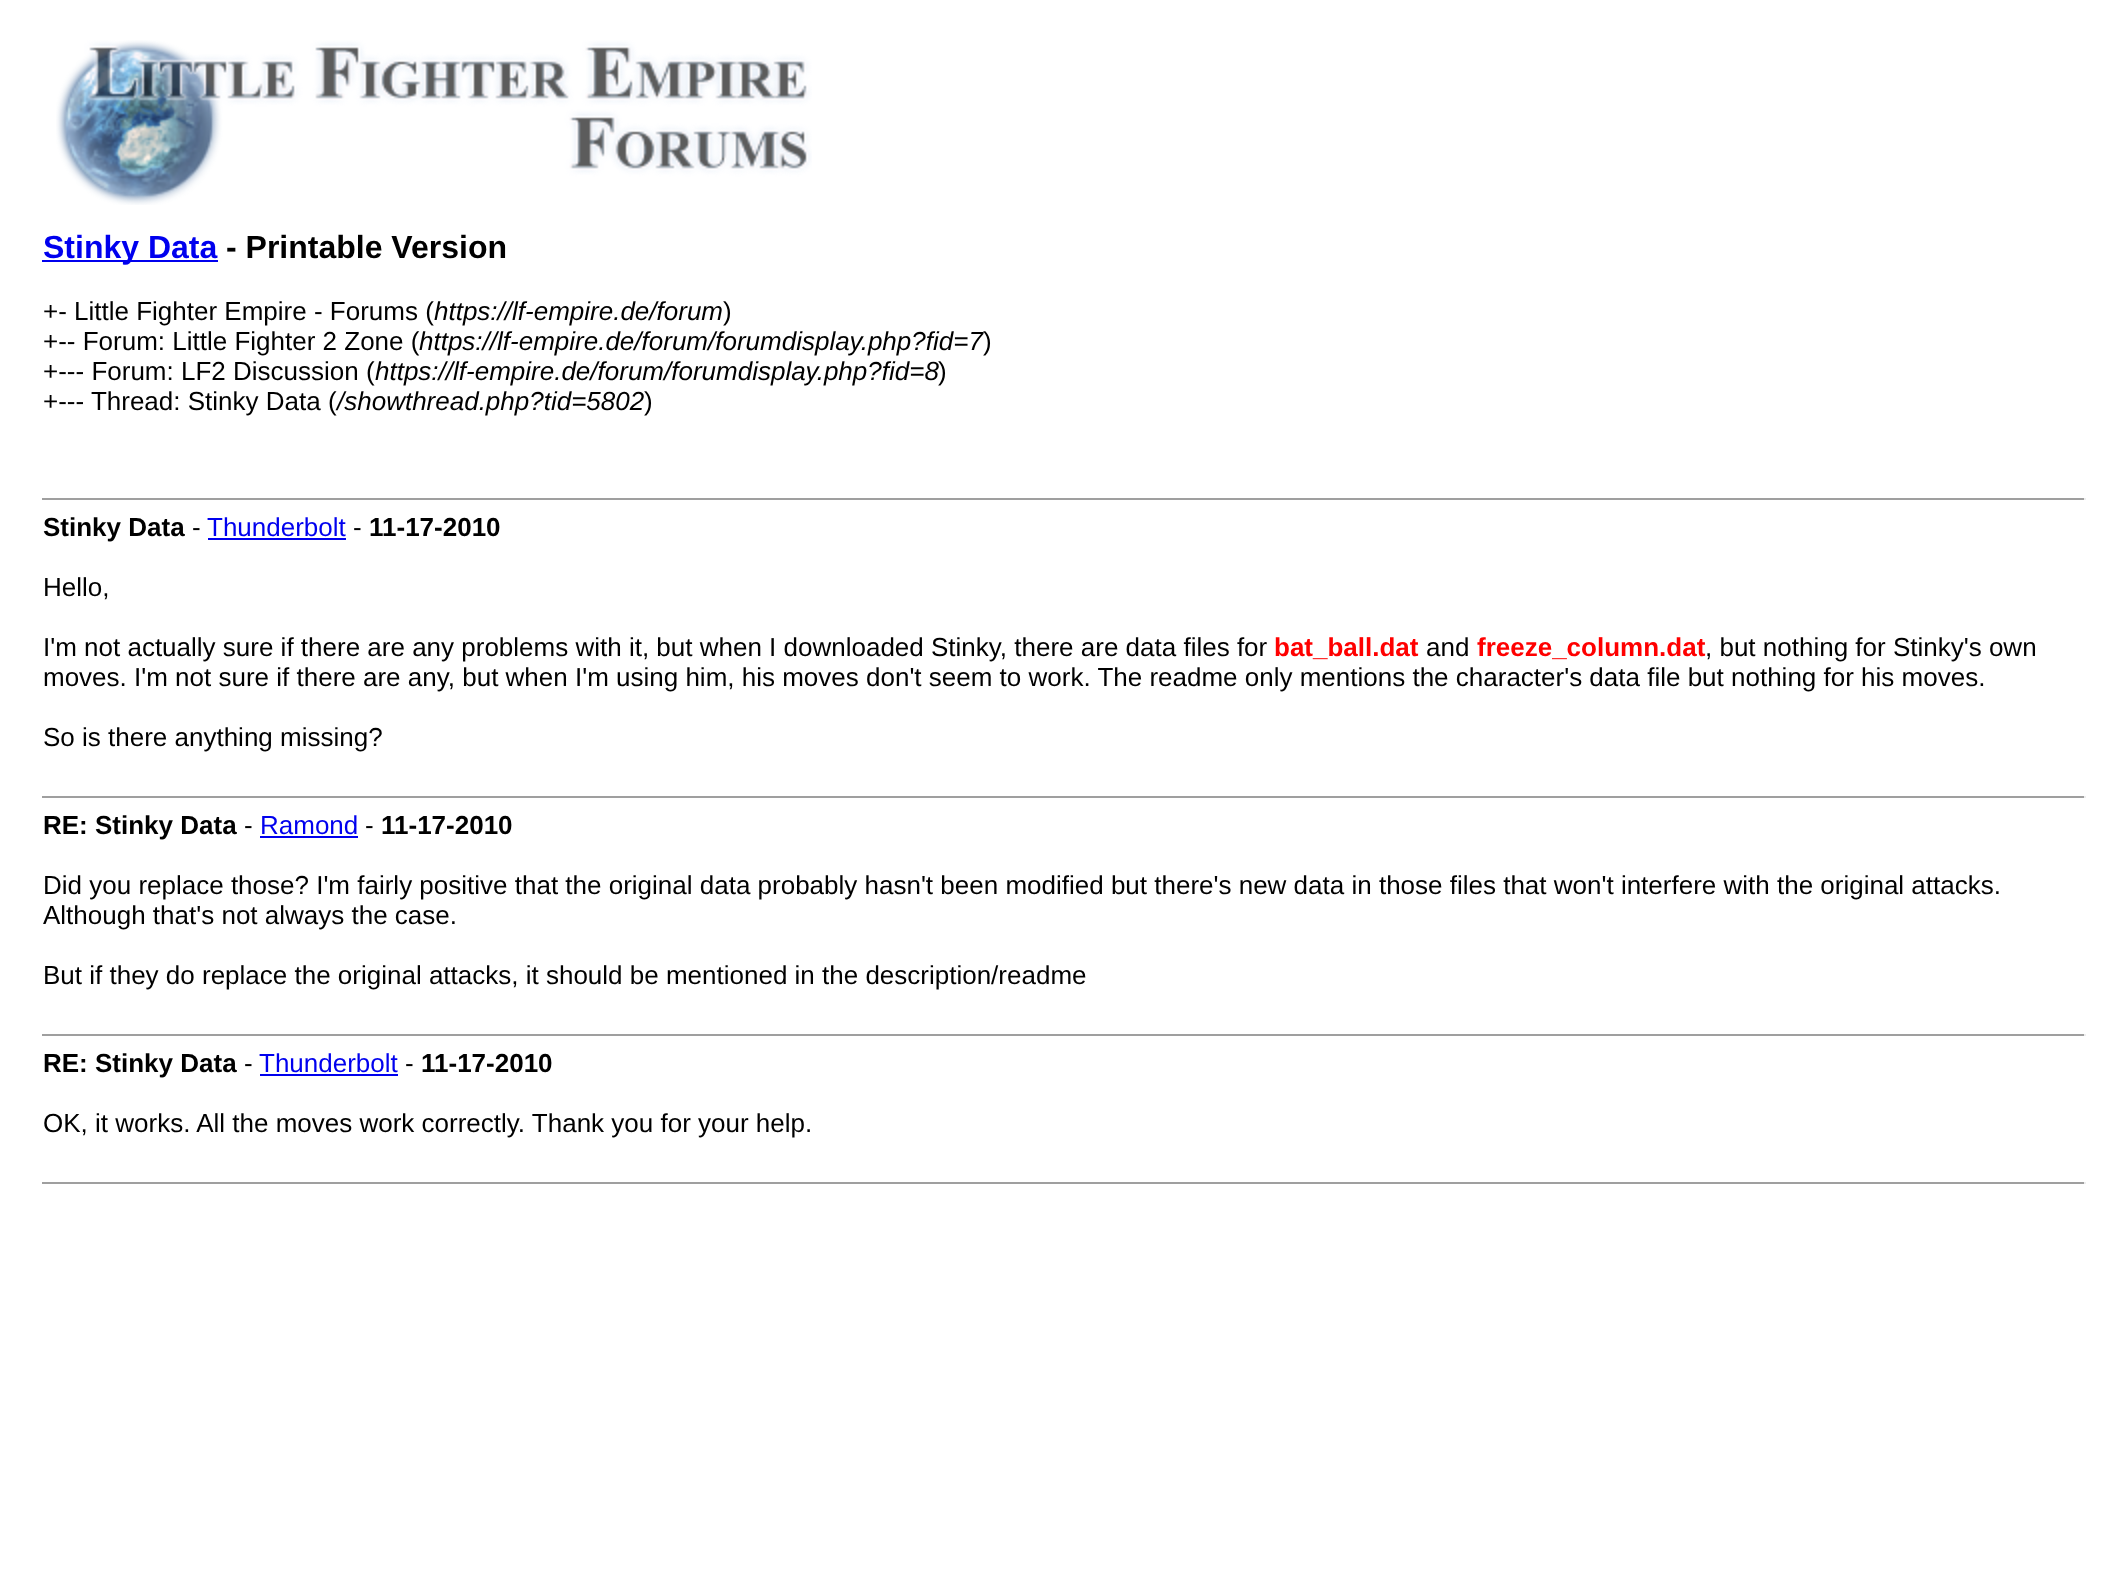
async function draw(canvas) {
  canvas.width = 2128
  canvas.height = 1581
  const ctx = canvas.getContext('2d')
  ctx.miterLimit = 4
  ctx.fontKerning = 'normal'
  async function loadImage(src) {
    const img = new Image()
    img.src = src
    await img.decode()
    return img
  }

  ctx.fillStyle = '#fff'
  ctx.fillRect(0, 0, 2128, 1581)
  ctx.drawImage(await loadImage('image0.png'), 56, 40, 756, 165)
  ctx.fillStyle = '#00e'
  ctx.fillRect(42, 260, 176, 2)
  ctx.font = 'bold 32px Liberation Sans'
  ctx.fillText('Stinky Data', 43, 258)
  ctx.fillStyle = '#000'
  ctx.fillText('- Printable Version', 226, 258)
  ctx.font = '26px Liberation Sans'
  ctx.fillText('+- Little Fighter Empire - Forums (', 43, 320)
  ctx.font = 'italic 26px Liberation Sans'
  ctx.fillText('https://lf-empire.de/forum', 434, 320)
  ctx.font = '26px Liberation Sans'
  ctx.fillText(')', 723, 320)
  ctx.fillText('+-- Forum: Little Fighter 2 Zone (', 43, 350)
  ctx.font = 'italic 26px Liberation Sans'
  ctx.fillText('https://lf-empire.de/forum/forumdisplay.php?fid=7', 419, 350)
  ctx.font = '26px Liberation Sans'
  ctx.fillText(')', 983, 350)
  ctx.fillText('+--- Forum: LF2 Discussion (', 43, 380)
  ctx.font = 'italic 26px Liberation Sans'
  ctx.fillText('https://lf-empire.de/forum/forumdisplay.php?fid=8', 375, 380)
  ctx.font = '26px Liberation Sans'
  ctx.fillText(')', 938, 380)
  ctx.fillText('+--- Thread: Stinky Data (', 43, 410)
  ctx.font = 'italic 26px Liberation Sans'
  ctx.fillText('/showthread.php?tid=5802', 337, 410)
  ctx.font = '26px Liberation Sans'
  ctx.fillText(')', 644, 410)
  ctx.fillStyle = '#9f9f9f'
  ctx.fillRect(42, 498, 2044, 2)
  ctx.fillStyle = '#eee'
  ctx.fillRect(2084, 498, 2, 2)
  ctx.font = 'bold 26px Liberation Sans'
  ctx.fillStyle = '#000'
  ctx.fillText('Stinky Data', 43, 536)
  ctx.font = '26px Liberation Sans'
  ctx.fillText('-', 192, 536)
  ctx.fillStyle = '#00e'
  ctx.fillText('Thunderbolt', 207, 536)
  ctx.fillRect(208, 538, 138, 2)
  ctx.fillStyle = '#000'
  ctx.fillText('-', 353, 536)
  ctx.font = 'bold 26px Liberation Sans'
  ctx.fillText('11-17-2010', 369, 536)
  ctx.font = '26px Liberation Sans'
  ctx.fillText('Hello,', 43, 596)
  ctx.fillText('I\'m not actually sure if there are any problems with it, but when I downloaded Stinky, there are data files for', 43, 656)
  ctx.font = 'bold 26px Liberation Sans'
  ctx.fillStyle = '#f00'
  ctx.fillText('bat_ball.dat', 1274, 656)
  ctx.font = '26px Liberation Sans'
  ctx.fillStyle = '#000'
  ctx.fillText('and', 1426, 656)
  ctx.font = 'bold 26px Liberation Sans'
  ctx.fillStyle = '#f00'
  ctx.fillText('freeze_column.dat', 1477, 656)
  ctx.font = '26px Liberation Sans'
  ctx.fillStyle = '#000'
  ctx.fillText(', but nothing for Stinky\'s own', 1705, 656)
  ctx.fillText('moves. I\'m not sure if there are any, but when I\'m using him, his moves don\'t seem to work. The readme only mentions the character\'s data file but nothing for his moves.', 43, 686)
  ctx.fillText('So is there anything missing?', 43, 746)
  ctx.fillStyle = '#9f9f9f'
  ctx.fillRect(42, 796, 2044, 2)
  ctx.fillStyle = '#eee'
  ctx.fillRect(2084, 796, 2, 2)
  ctx.font = 'bold 26px Liberation Sans'
  ctx.fillStyle = '#000'
  ctx.fillText('RE: Stinky Data', 43, 834)
  ctx.font = '26px Liberation Sans'
  ctx.fillText('-', 244, 834)
  ctx.fillStyle = '#00e'
  ctx.fillText('Ramond', 260, 834)
  ctx.fillRect(260, 836, 98, 2)
  ctx.fillStyle = '#000'
  ctx.fillText('-', 365, 834)
  ctx.font = 'bold 26px Liberation Sans'
  ctx.fillText('11-17-2010', 381, 834)
  ctx.font = '26px Liberation Sans'
  ctx.fillText('Did you replace those? I\'m fairly positive that the original data probably hasn\'t been modified but there\'s new data in those files that won\'t interfere with the original attacks.', 43, 894)
  ctx.fillText('Although that\'s not always the case.', 43, 924)
  ctx.fillText('But if they do replace the original attacks, it should be mentioned in the description/readme', 43, 984)
  ctx.fillStyle = '#9f9f9f'
  ctx.fillRect(42, 1034, 2044, 2)
  ctx.fillStyle = '#eee'
  ctx.fillRect(2084, 1034, 2, 2)
  ctx.font = 'bold 26px Liberation Sans'
  ctx.fillStyle = '#000'
  ctx.fillText('RE: Stinky Data', 43, 1072)
  ctx.font = '26px Liberation Sans'
  ctx.fillText('-', 244, 1072)
  ctx.fillStyle = '#00e'
  ctx.fillText('Thunderbolt', 259, 1072)
  ctx.fillRect(260, 1074, 138, 2)
  ctx.fillStyle = '#000'
  ctx.fillText('-', 405, 1072)
  ctx.font = 'bold 26px Liberation Sans'
  ctx.fillText('11-17-2010', 421, 1072)
  ctx.font = '26px Liberation Sans'
  ctx.fillText('OK, it works. All the moves work correctly. Thank you for your help.', 43, 1132)
  ctx.fillStyle = '#9f9f9f'
  ctx.fillRect(42, 1182, 2044, 2)
  ctx.fillStyle = '#eee'
  ctx.fillRect(2084, 1182, 2, 2)
}

draw(document.querySelector('canvas'))
